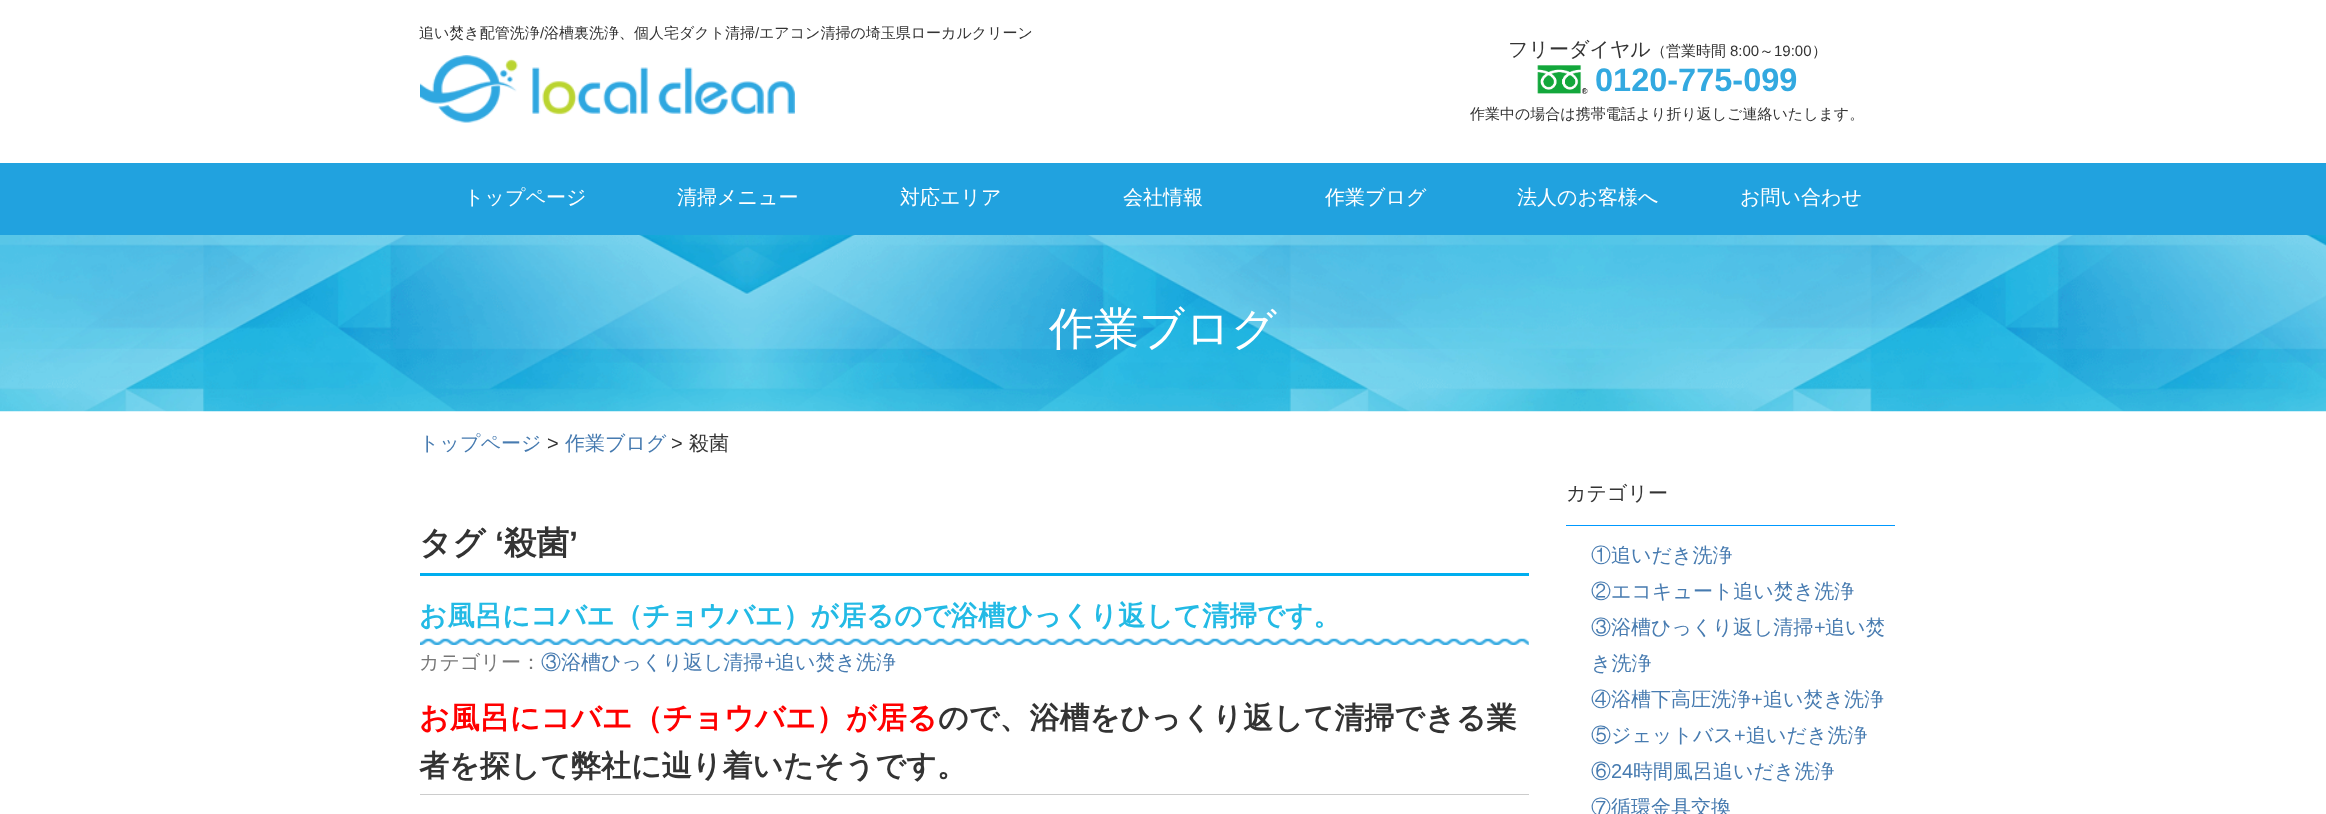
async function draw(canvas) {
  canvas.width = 2326
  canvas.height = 814
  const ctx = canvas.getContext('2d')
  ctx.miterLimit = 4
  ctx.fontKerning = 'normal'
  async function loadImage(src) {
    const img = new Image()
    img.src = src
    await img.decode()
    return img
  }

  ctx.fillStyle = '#fff'
  ctx.fillRect(0, 0, 2326, 814)
  ctx.font = '500 15px WenQuanYi Zen Hei'
  ctx.fillStyle = '#333'
  ctx.fillText('追い焚き配管洗浄', 419, 38)
  ctx.font = '15px Liberation Sans'
  ctx.fillText('/', 540, 38)
  ctx.font = '500 15px WenQuanYi Zen Hei'
  ctx.fillText('浴槽裏洗浄、個人宅ダクト清掃', 544, 38)
  ctx.font = '15px Liberation Sans'
  ctx.fillText('/', 755, 38)
  ctx.font = '500 15px WenQuanYi Zen Hei'
  ctx.fillText('エアコン清掃の埼玉県ローカルクリーン', 759, 38)
  ctx.drawImage(await loadImage('image0.png'), 420, 55, 375, 68)
  ctx.font = '500 20px WenQuanYi Zen Hei'
  ctx.fillText('フリーダイヤル', 1508, 56)
  ctx.font = '500 15px WenQuanYi Zen Hei'
  ctx.fillText('（営業時間', 1651, 56)
  ctx.font = '15px Liberation Sans'
  ctx.fillText('8:00', 1730, 56)
  ctx.font = '500 15px WenQuanYi Zen Hei'
  ctx.fillText('～', 1759, 56)
  ctx.font = '15px Liberation Sans'
  ctx.fillText('19:00', 1774, 56)
  ctx.font = '500 15px WenQuanYi Zen Hei'
  ctx.fillText('）', 1812, 56)
  ctx.drawImage(await loadImage('image1.png'), 1537, 65, 51, 29)
  ctx.font = 'bold 32.5px Liberation Sans'
  ctx.fillStyle = '#33a9e0'
  ctx.fillText('0120-775-099', 1595, 91)
  ctx.font = '500 15px WenQuanYi Zen Hei'
  ctx.fillStyle = '#333'
  ctx.fillText('作業中の場合は携帯電話より折り返しご連絡いたします。', 1470, 119)
  ctx.fillStyle = '#21a2df'
  ctx.fillRect(0, 163, 2326, 72)
  ctx.font = '500 20px WenQuanYi Zen Hei'
  ctx.fillStyle = '#fff'
  ctx.fillText('トップページ', 464, 204)
  ctx.fillText('清掃メニュー', 677, 204)
  ctx.fillText('対応エリア', 900, 204)
  ctx.fillText('会社情報', 1123, 204)
  ctx.fillText('作業ブログ', 1325, 204)
  ctx.fillText('法人のお客様へ', 1517, 204)
  ctx.fillText('お問い合わせ', 1740, 204)
  ctx.drawImage(await loadImage('image2.png'), 0, 235, 2326, 177)
  ctx.font = '500 45px WenQuanYi Zen Hei'
  ctx.fillText('作業ブログ', 1049, 344)
  ctx.font = '500 20px WenQuanYi Zen Hei'
  ctx.fillStyle = '#477bb0'
  ctx.fillText('トップページ', 419, 450)
  ctx.font = '20px Liberation Sans'
  ctx.fillStyle = '#333'
  ctx.fillText('>', 547, 450)
  ctx.font = '500 20px WenQuanYi Zen Hei'
  ctx.fillStyle = '#477bb0'
  ctx.fillText('作業ブログ', 565, 450)
  ctx.font = '20px Liberation Sans'
  ctx.fillStyle = '#333'
  ctx.fillText('>', 671, 450)
  ctx.font = '500 20px WenQuanYi Zen Hei'
  ctx.fillText('殺菌', 689, 450)
  ctx.fillStyle = '#00aeef'
  ctx.fillRect(420, 573, 1109, 3)
  ctx.font = 'bold 32.5px WenQuanYi Zen Hei'
  ctx.fillStyle = '#333'
  ctx.fillText('タグ', 419, 554)
  ctx.font = 'bold 32.5px Liberation Sans'
  ctx.fillText('‘', 495, 554)
  ctx.font = 'bold 32.5px WenQuanYi Zen Hei'
  ctx.fillText('殺菌', 504, 554)
  ctx.font = 'bold 32.5px Liberation Sans'
  ctx.fillText('’', 569, 554)
  ctx.drawImage(await loadImage('image3.png'), 420, 638, 1109, 7)
  ctx.font = 'bold 27.5px WenQuanYi Zen Hei'
  ctx.fillStyle = '#23bae5'
  ctx.fillText('お風呂にコバエ（チョウバエ）が居るので浴槽ひっくり返して清掃です。', 419, 625)
  ctx.font = '500 20px WenQuanYi Zen Hei'
  ctx.fillStyle = '#787878'
  ctx.fillText('カテゴリー：', 419, 669)
  ctx.fillStyle = '#477bb0'
  ctx.fillText('③浴槽ひっくり返し清掃', 541, 669)
  ctx.font = '20px Liberation Sans'
  ctx.fillText('+', 764, 669)
  ctx.font = '500 20px WenQuanYi Zen Hei'
  ctx.fillText('追い焚き洗浄', 775, 669)
  ctx.fillStyle = '#ccc'
  ctx.fillRect(420, 794, 1109, 1)
  ctx.font = 'bold 30px WenQuanYi Zen Hei'
  ctx.fillStyle = '#f00'
  ctx.fillText('お風呂にコバエ（チョウバエ）が居る', 419, 728)
  ctx.fillStyle = '#333'
  ctx.fillText('ので、浴槽をひっくり返して清掃できる業', 938, 728)
  ctx.fillText('者を探して弊社に辿り着いたそうです。', 419, 776)
  ctx.fillStyle = '#09f'
  ctx.fillRect(1566, 525, 329, 1)
  ctx.font = '500 20px WenQuanYi Zen Hei'
  ctx.fillStyle = '#333'
  ctx.fillText('カテゴリー', 1566, 500)
  ctx.fillStyle = '#477bb0'
  ctx.fillText('①追いだき洗浄', 1591, 562)
  ctx.fillText('②エコキュート追い焚き洗浄', 1591, 598)
  ctx.fillText('③浴槽ひっくり返し清掃', 1591, 634)
  ctx.font = '20px Liberation Sans'
  ctx.fillText('+', 1814, 634)
  ctx.font = '500 20px WenQuanYi Zen Hei'
  ctx.fillText('追い焚', 1825, 634)
  ctx.fillText('き洗浄', 1591, 670)
  ctx.fillText('④浴槽下高圧洗浄', 1591, 706)
  ctx.font = '20px Liberation Sans'
  ctx.fillText('+', 1751, 706)
  ctx.font = '500 20px WenQuanYi Zen Hei'
  ctx.fillText('追い焚き洗浄', 1763, 706)
  ctx.fillText('⑤ジェットバス', 1591, 742)
  ctx.font = '20px Liberation Sans'
  ctx.fillText('+', 1734, 742)
  ctx.font = '500 20px WenQuanYi Zen Hei'
  ctx.fillText('追いだき洗浄', 1746, 742)
  ctx.fillText('⑥', 1591, 778)
  ctx.font = '20px Liberation Sans'
  ctx.fillText('24', 1611, 778)
  ctx.font = '500 20px WenQuanYi Zen Hei'
  ctx.fillText('時間風呂追いだき洗浄', 1633, 778)
  ctx.fillText('⑦循環金具交換', 1591, 814)
}

draw(document.querySelector('canvas'))
